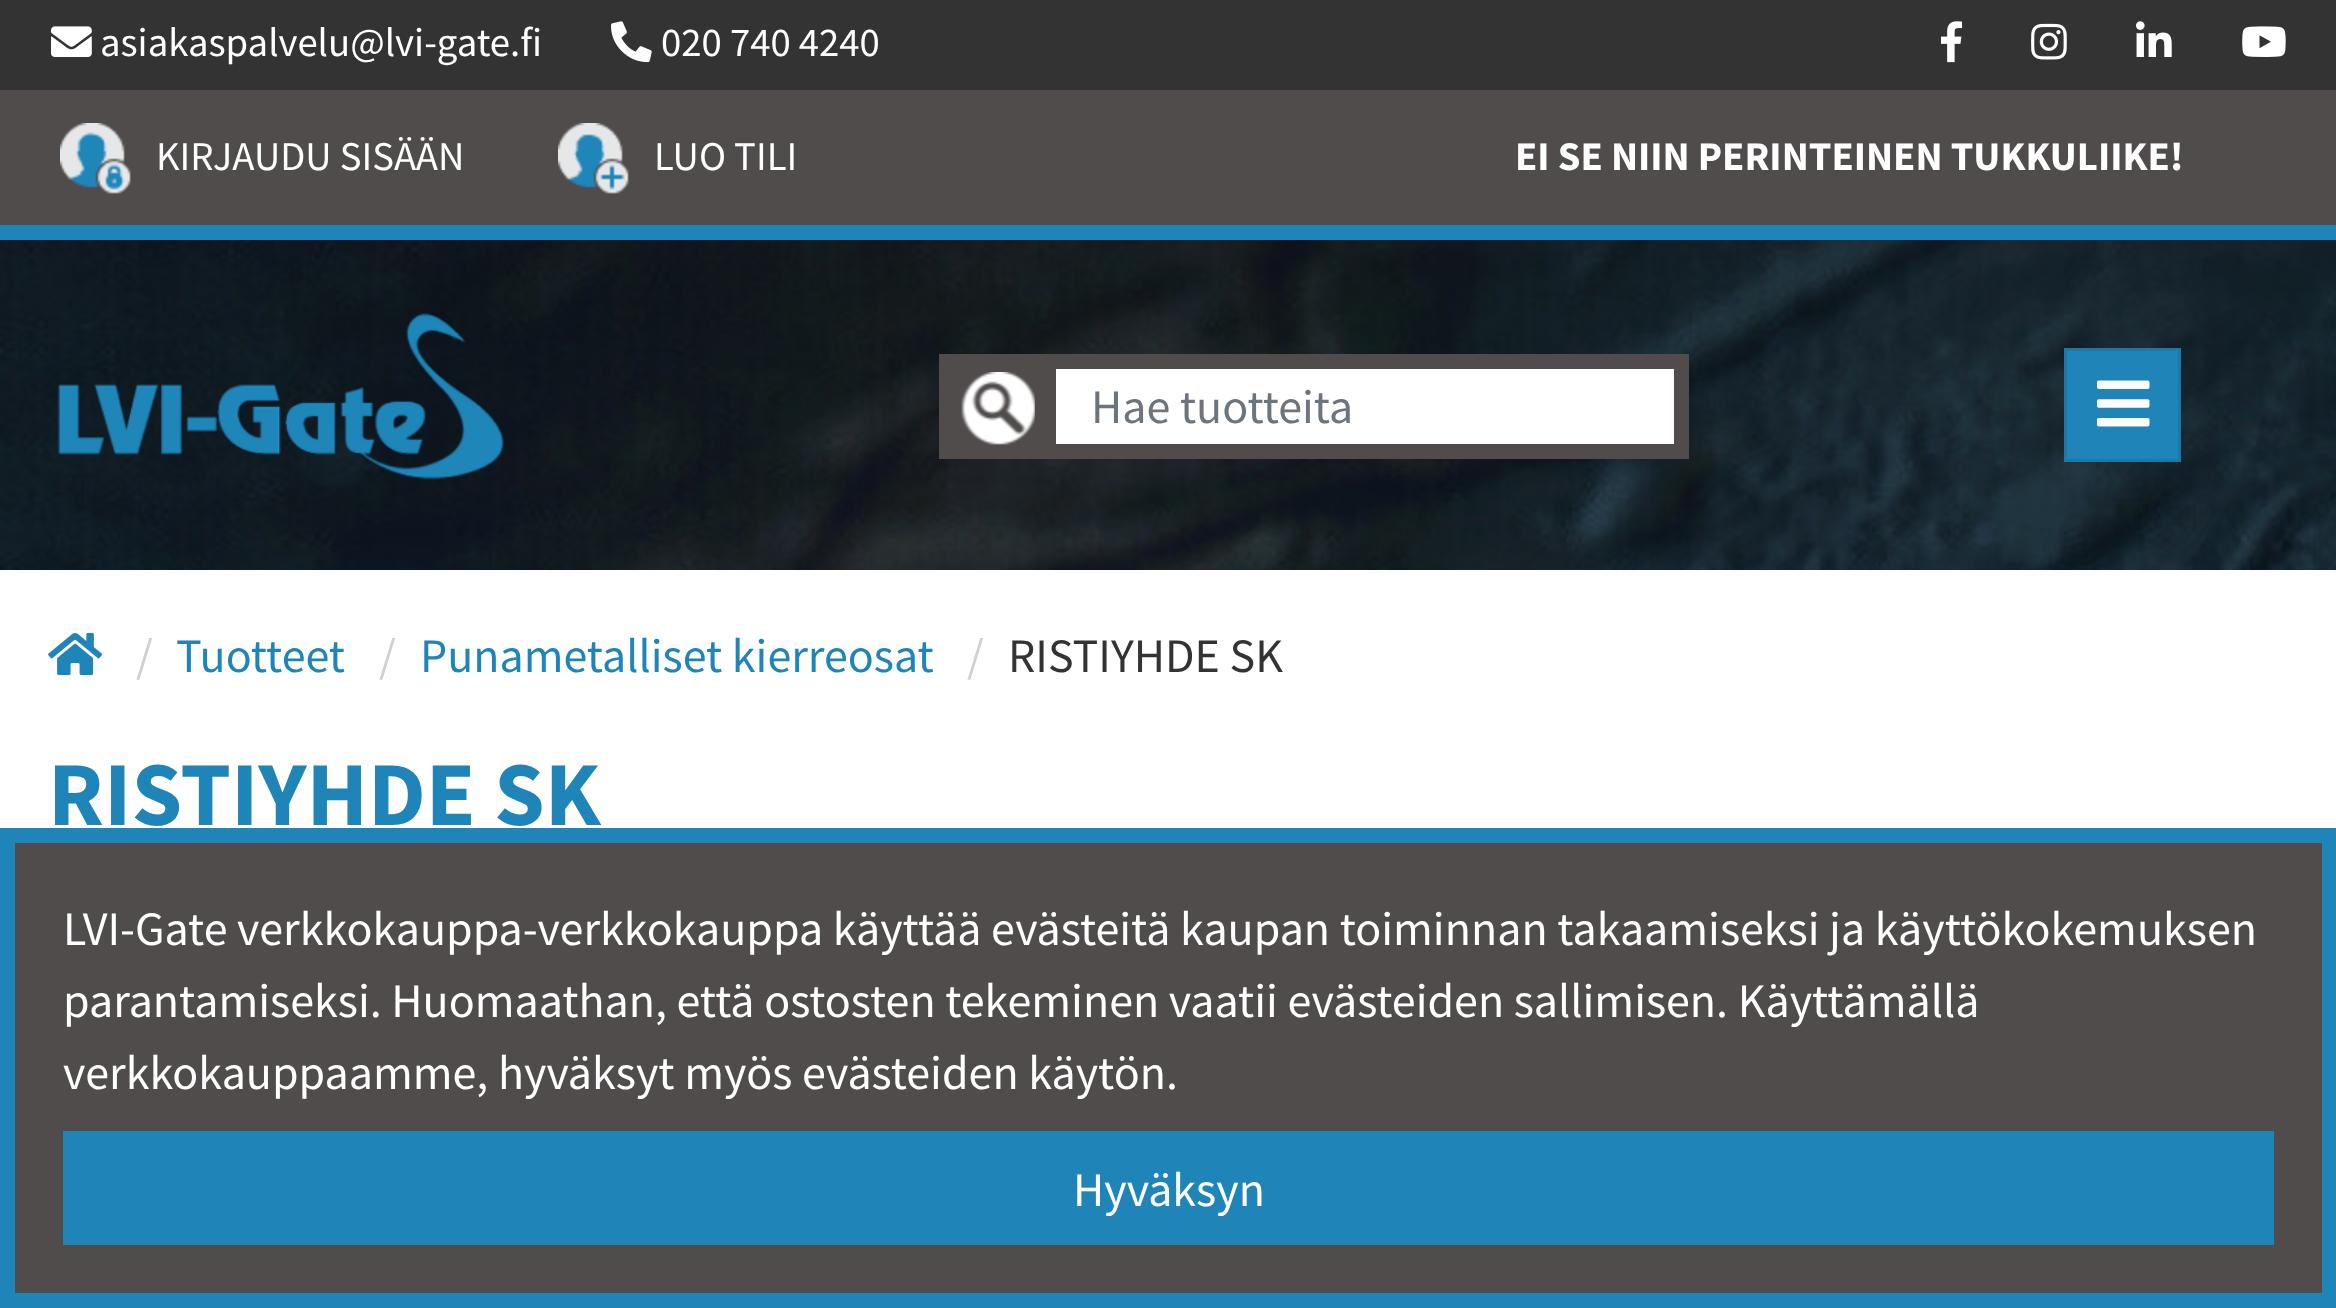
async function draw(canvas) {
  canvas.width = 2336
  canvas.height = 1308
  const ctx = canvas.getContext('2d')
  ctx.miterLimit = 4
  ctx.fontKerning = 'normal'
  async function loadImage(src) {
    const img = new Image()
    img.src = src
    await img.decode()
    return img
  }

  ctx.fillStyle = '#504c4b'
  ctx.fillRect(0, 0, 2336, 1308)
  ctx.fillStyle = '#333'
  ctx.fillRect(0, 0, 2336, 90)
  ctx.drawImage(await loadImage('image0.png'), 51, 26, 41, 31)
  ctx.font = '40.75px Source Sans Pro'
  ctx.fillStyle = '#fff'
  ctx.fillText('asiakaspalvelu@lvi-gate.fi', 100, 56)
  ctx.drawImage(await loadImage('image1.png'), 611, 21, 41, 42)
  ctx.fillText('020 740 4240', 661, 56)
  ctx.drawImage(await loadImage('image2.png'), 1941, 21, 22, 42)
  ctx.drawImage(await loadImage('image3.png'), 2031, 23, 36, 37)
  ctx.drawImage(await loadImage('image4.png'), 2136, 21, 36, 36)
  ctx.drawImage(await loadImage('image5.png'), 2242, 26, 44, 31)
  ctx.fillStyle = '#1f85b9'
  ctx.fillRect(0, 225, 2336, 15)
  ctx.drawImage(await loadImage('image6.png'), 60, 123, 71, 71)
  ctx.fillStyle = '#fff'
  ctx.fillText('KIRJAUDU SISÄÄN', 156, 170)
  ctx.drawImage(await loadImage('image7.png'), 558, 123, 71, 71)
  ctx.fillText('LUO TILI', 654, 170)
  ctx.font = 'bold 40.75px Source Sans Pro'
  ctx.fillText('EI SE NIIN PERINTEINEN TUKKULIIKE!', 1515, 170)
  ctx.drawImage(await loadImage('image8.png'), 0, 240, 2336, 330)
  ctx.drawImage(await loadImage('image9.png'), 57, 313, 447, 167)
  ctx.fillStyle = '#504c4b'
  ctx.fillRect(939, 354, 102, 105)
  ctx.drawImage(await loadImage('image10.png'), 961, 372, 74, 73)
  ctx.fillStyle = '#fff'
  ctx.beginPath()
  ctx.rect(1048.5, 361.5, 633, 90)
  ctx.fill()
  ctx.strokeStyle = '#504c4b'
  ctx.lineWidth = 15
  ctx.stroke()
  ctx.font = '48px Source Sans Pro'
  ctx.fillStyle = '#6c757d'
  ctx.fillText('Hae tuotteita', 1091, 423)
  ctx.fillStyle = '#1f85b9'
  ctx.beginPath()
  ctx.rect(2065.5, 349.5, 114, 111)
  ctx.fill()
  ctx.strokeStyle = '#1c78a7'
  ctx.lineWidth = 3
  ctx.stroke()
  ctx.drawImage(await loadImage('image11.png'), 2097, 380, 53, 47)
  ctx.fillStyle = '#fff'
  ctx.fillRect(0, 570, 2336, 258)
  ctx.drawImage(await loadImage('image12.png'), 48, 633, 55, 42)
  ctx.fillStyle = '#d0d0d0'
  ctx.fillText('/', 136, 672)
  ctx.fillStyle = '#1f85b9'
  ctx.fillText('Tuotteet', 176, 672)
  ctx.fillStyle = '#d0d0d0'
  ctx.fillText('/', 379, 672)
  ctx.fillStyle = '#1f85b9'
  ctx.fillText('Punametalliset kierreosat', 420, 672)
  ctx.fillStyle = '#d0d0d0'
  ctx.fillText('/', 967, 672)
  ctx.fillStyle = '#333'
  ctx.fillText('RISTIYHDE SK', 1008, 672)
  ctx.font = 'bold 91.25px Source Sans Pro'
  ctx.fillStyle = '#1f85b9'
  ctx.fillText('RISTIYHDE SK', 48, 825)
  ctx.strokeStyle = '#1f85b9'
  ctx.lineWidth = 15
  ctx.strokeRect(7.5, 835.5, 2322, 465)
  ctx.font = '48px Source Sans Pro'
  ctx.fillStyle = '#fff'
  ctx.fillText('LVI-Gate verkkokauppa-verkkokauppa käyttää evästeitä kaupan toiminnan takaamiseksi ja käyttökokemuksen', 63, 945)
  ctx.fillText('parantamiseksi. Huomaathan, että ostosten tekeminen vaatii evästeiden sallimisen. Käyttämällä', 63, 1017)
  ctx.fillText('verkkokauppaamme, hyväksyt myös evästeiden käytön.', 63, 1089)
  ctx.fillStyle = '#1f85b9'
  ctx.fillRect(63, 1131, 2211, 114)
  ctx.fillStyle = '#fff'
  ctx.fillText('Hyväksyn', 1073, 1206)
}

draw(document.querySelector('canvas'))
